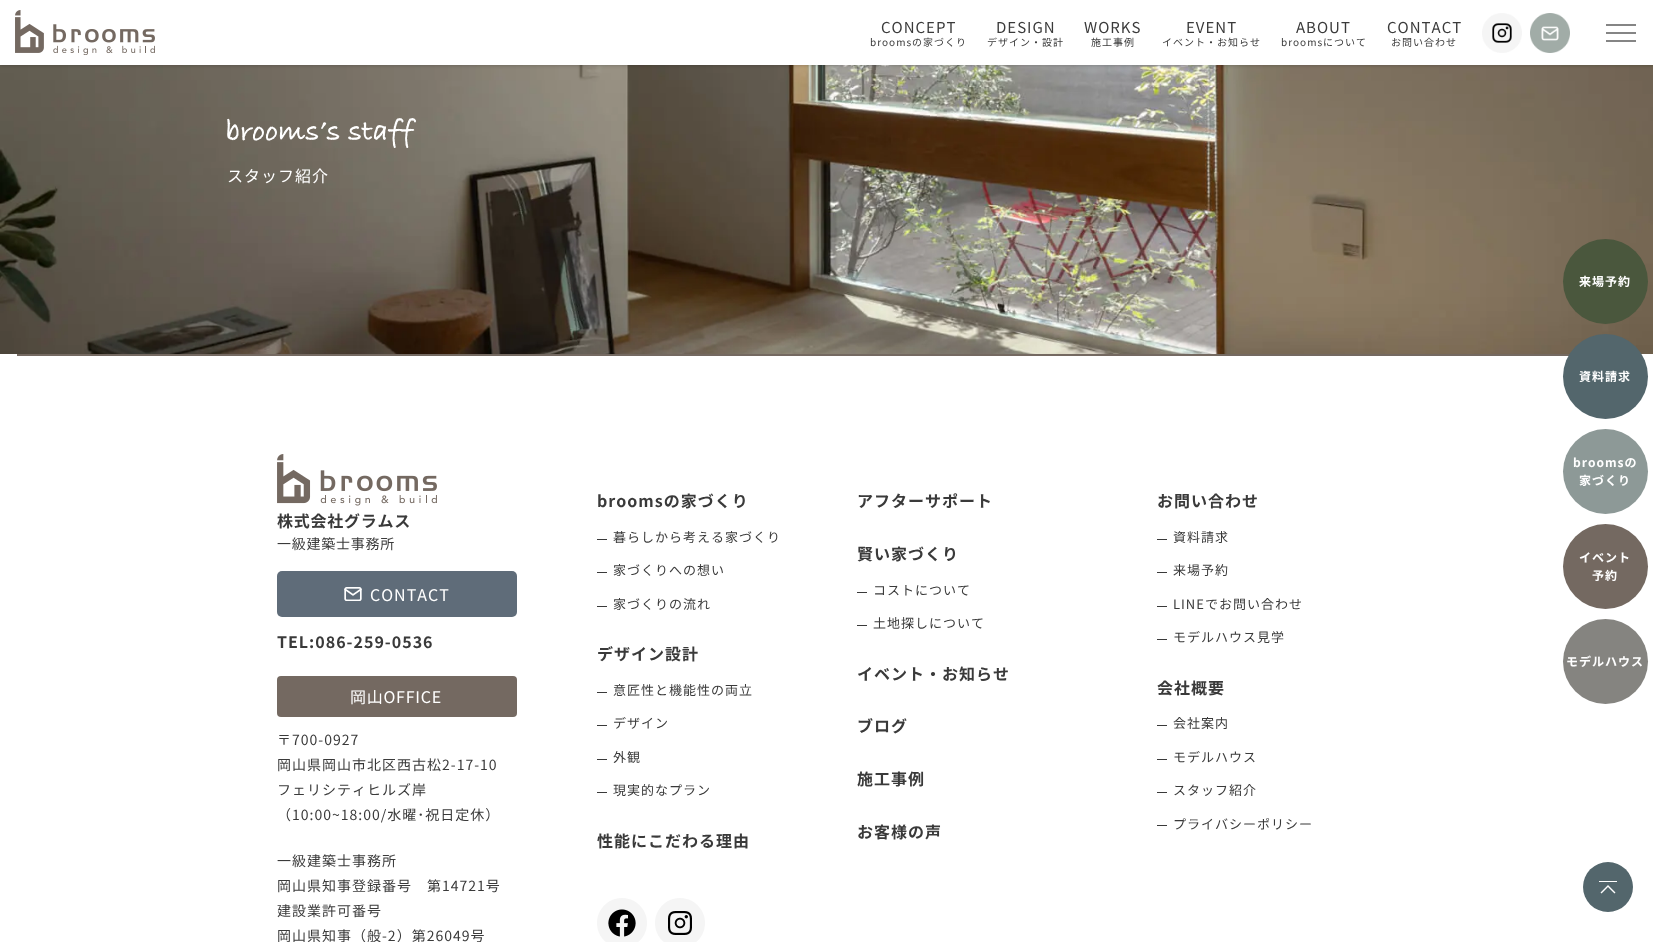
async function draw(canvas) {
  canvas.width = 1653
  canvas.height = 942
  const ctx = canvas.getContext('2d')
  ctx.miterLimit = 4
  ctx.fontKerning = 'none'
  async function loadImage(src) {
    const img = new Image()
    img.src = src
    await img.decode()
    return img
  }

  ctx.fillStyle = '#fff'
  ctx.fillRect(0, 0, 1653, 942)
  ctx.drawImage(await loadImage('image3.png'), 0, 65, 1653, 289)
  ctx.fillStyle = '#00000029'
  ctx.filter = 'blur(1.5px)'
  ctx.beginPath()
  ctx.rect(0, 1, 1653, 65)
  ctx.fill()
  ctx.filter = 'none'
  ctx.fillStyle = '#fff'
  ctx.fillRect(0, 0, 1653, 65)
  ctx.drawImage(await loadImage('image0.png'), 15, 10, 140, 45)
  ctx.letterSpacing = '1px'
  ctx.font = '15px Noto Sans JP'
  ctx.fillStyle = '#3a3a3a'
  ctx.fillText('CONCEPT', 881, 33)
  ctx.font = '10px Noto Sans JP'
  ctx.fillText('broomsの家づくり', 870, 46)
  ctx.font = '15px Noto Sans JP'
  ctx.fillText('DESIGN', 996, 33)
  ctx.font = '10px Noto Sans JP'
  ctx.fillText('デザイン・設計', 987, 46)
  ctx.font = '15px Noto Sans JP'
  ctx.fillText('WORKS', 1084, 33)
  ctx.font = '10px Noto Sans JP'
  ctx.fillText('施工事例', 1091, 46)
  ctx.font = '15px Noto Sans JP'
  ctx.fillText('EVENT', 1186, 33)
  ctx.font = '10px Noto Sans JP'
  ctx.fillText('イベント・お知らせ', 1162, 46)
  ctx.font = '15px Noto Sans JP'
  ctx.fillText('ABOUT', 1296, 33)
  ctx.font = '10px Noto Sans JP'
  ctx.fillText('broomsについて', 1281, 46)
  ctx.font = '15px Noto Sans JP'
  ctx.fillText('CONTACT', 1387, 33)
  ctx.font = '10px Noto Sans JP'
  ctx.fillText('お問い合わせ', 1391, 46)
  ctx.drawImage(await loadImage('image1.png'), 1482, 13, 40, 40)
  ctx.drawImage(await loadImage('image2.png'), 1530, 13, 40, 40)
  ctx.fillStyle = '#858585'
  ctx.fillRect(1606, 32, 30, 2)
  ctx.fillRect(1606, 24, 30, 2)
  ctx.fillRect(1606, 40, 30, 2)
  ctx.drawImage(await loadImage('image4.png'), 227, 118, 189, 30)
  ctx.font = '16px Noto Sans JP'
  ctx.fillStyle = '#fff'
  ctx.fillText('スタッフ紹介', 227, 182)
  ctx.fillStyle = '#746961'
  ctx.fillRect(17, 354, 1553, 2)
  ctx.drawImage(await loadImage('image5.png'), 277, 454, 160, 52)
  ctx.letterSpacing = '0.75px'
  ctx.font = 'bold 16px Noto Sans JP'
  ctx.fillStyle = '#3a3a3a'
  ctx.fillText('株式会社グラムス', 277, 527)
  ctx.font = '14px Noto Sans JP'
  ctx.fillText('一級建築士事務所', 277, 549)
  ctx.fillStyle = '#5f6c79'
  ctx.beginPath()
  ctx.roundRect(277, 571, 240, 46, 5)
  ctx.fill()
  ctx.drawImage(await loadImage('image6.png'), 344, 587, 18, 14)
  ctx.letterSpacing = '1px'
  ctx.font = '16px Noto Sans JP'
  ctx.fillStyle = '#fff'
  ctx.fillText('CONTACT', 370, 601)
  ctx.font = 'bold 16px Noto Sans JP'
  ctx.fillStyle = '#3a3a3a'
  ctx.fillText('TEL:086-259-0536', 277, 648)
  ctx.fillStyle = '#746961'
  ctx.beginPath()
  ctx.roundRect(277, 676, 240, 41, 4)
  ctx.fill()
  ctx.letterSpacing = '0.75px'
  ctx.font = '16px Noto Sans JP'
  ctx.fillStyle = '#fff'
  ctx.fillText('岡山OFFICE', 350, 703)
  ctx.letterSpacing = '1px'
  ctx.font = '14px Noto Sans JP'
  ctx.fillStyle = '#3a3a3a'
  ctx.fillText('〒700-0927', 277, 745)
  ctx.fillText('岡山県岡山市北区西古松2-17-10', 277, 770)
  ctx.fillText('フェリシティヒルズ岸', 277, 795)
  ctx.fillText('（10:00~18:00/水曜･祝日定休）', 277, 820)
  ctx.fillText('一級建築士事務所', 277, 866)
  ctx.fillText('岡山県知事登録番号　第14721号', 277, 891)
  ctx.fillText('建設業許可番号', 277, 916)
  ctx.fillText('岡山県知事（般-2）第26049号', 277, 941)
  ctx.font = 'bold 16px Noto Sans JP'
  ctx.fillText('broomsの家づくり', 597, 507)
  ctx.fillRect(597, 539, 10, 1)
  ctx.font = '13px Noto Sans JP'
  ctx.fillText('暮らしから考える家づくり', 613, 542)
  ctx.fillRect(597, 572, 10, 1)
  ctx.fillText('家づくりへの想い', 613, 575)
  ctx.fillRect(597, 606, 10, 1)
  ctx.fillText('家づくりの流れ', 613, 609)
  ctx.font = 'bold 16px Noto Sans JP'
  ctx.fillText('デザイン設計', 597, 660)
  ctx.fillRect(597, 692, 10, 1)
  ctx.font = '13px Noto Sans JP'
  ctx.fillText('意匠性と機能性の両立', 613, 695)
  ctx.fillRect(597, 725, 10, 1)
  ctx.fillText('デザイン', 613, 728)
  ctx.fillRect(597, 759, 10, 1)
  ctx.fillText('外観', 613, 762)
  ctx.fillRect(597, 792, 10, 1)
  ctx.fillText('現実的なプラン', 613, 795)
  ctx.font = 'bold 16px Noto Sans JP'
  ctx.fillText('性能にこだわる理由', 597, 847)
  ctx.fillText('アフターサポート', 857, 507)
  ctx.fillText('賢い家づくり', 857, 560)
  ctx.fillRect(857, 592, 10, 1)
  ctx.font = '13px Noto Sans JP'
  ctx.fillText('コストについて', 873, 595)
  ctx.fillRect(857, 625, 10, 1)
  ctx.fillText('土地探しについて', 873, 628)
  ctx.font = 'bold 16px Noto Sans JP'
  ctx.fillText('イベント・お知らせ', 857, 680)
  ctx.fillText('ブログ', 857, 732)
  ctx.fillText('施工事例', 857, 785)
  ctx.fillText('お客様の声', 857, 838)
  ctx.fillText('お問い合わせ', 1157, 507)
  ctx.fillRect(1157, 539, 10, 1)
  ctx.font = '13px Noto Sans JP'
  ctx.fillText('資料請求', 1173, 542)
  ctx.fillRect(1157, 572, 10, 1)
  ctx.fillText('来場予約', 1173, 575)
  ctx.fillRect(1157, 606, 10, 1)
  ctx.fillText('LINEでお問い合わせ', 1173, 609)
  ctx.fillRect(1157, 639, 10, 1)
  ctx.fillText('モデルハウス見学', 1173, 642)
  ctx.font = 'bold 16px Noto Sans JP'
  ctx.fillText('会社概要', 1157, 694)
  ctx.fillRect(1157, 725, 10, 1)
  ctx.font = '13px Noto Sans JP'
  ctx.fillText('会社案内', 1173, 728)
  ctx.fillRect(1157, 759, 10, 1)
  ctx.fillText('モデルハウス', 1173, 762)
  ctx.fillRect(1157, 792, 10, 1)
  ctx.fillText('スタッフ紹介', 1173, 795)
  ctx.fillRect(1157, 825, 10, 1)
  ctx.fillText('プライバシーポリシー', 1173, 829)
  ctx.drawImage(await loadImage('image7.png'), 597, 898, 50, 44)
  ctx.drawImage(await loadImage('image8.png'), 655, 898, 50, 44)
  ctx.fillStyle = '#4a573d'
  ctx.beginPath()
  ctx.arc(1605.5, 281.5, 42.5, 0, 2 * Math.PI)
  ctx.fill()
  ctx.font = 'bold 12px Noto Sans JP'
  ctx.fillStyle = '#fff'
  ctx.fillText('来場予約', 1579, 286)
  ctx.fillStyle = '#53666c'
  ctx.beginPath()
  ctx.arc(1605.5, 376.5, 42.5, 0, 2 * Math.PI)
  ctx.fill()
  ctx.fillStyle = '#fff'
  ctx.fillText('資料請求', 1579, 381)
  ctx.fillStyle = '#8d9997'
  ctx.beginPath()
  ctx.arc(1605.5, 471.5, 42.5, 0, 2 * Math.PI)
  ctx.fill()
  ctx.fillStyle = '#fff'
  ctx.fillText('broomsの', 1573, 467)
  ctx.fillText('家づくり', 1579, 485)
  ctx.fillStyle = '#746961'
  ctx.beginPath()
  ctx.arc(1605.5, 566.5, 42.5, 0, 2 * Math.PI)
  ctx.fill()
  ctx.fillStyle = '#fff'
  ctx.fillText('イベント', 1579, 562)
  ctx.fillText('予約', 1592, 580)
  ctx.fillStyle = '#858480'
  ctx.beginPath()
  ctx.arc(1605.5, 661.5, 42.5, 0, 2 * Math.PI)
  ctx.fill()
  ctx.fillStyle = '#fff'
  ctx.fillText('モデルハウス', 1566, 666)
  ctx.fillStyle = '#53666c'
  ctx.beginPath()
  ctx.arc(1608, 887, 25, 0, 2 * Math.PI)
  ctx.fill()
  ctx.fillStyle = '#fff'
  ctx.beginPath()
  ctx.moveTo(1608, 885)
  ctx.lineTo(1600.5, 892.5)
  ctx.lineTo(1601.5, 893.5)
  ctx.lineTo(1608, 887)
  ctx.lineTo(1614.5, 893.5)
  ctx.lineTo(1615.5, 892.5)
  ctx.closePath()
  ctx.fill()
  ctx.fillRect(1599, 881, 18, 1)
}

draw(document.querySelector('canvas'))
